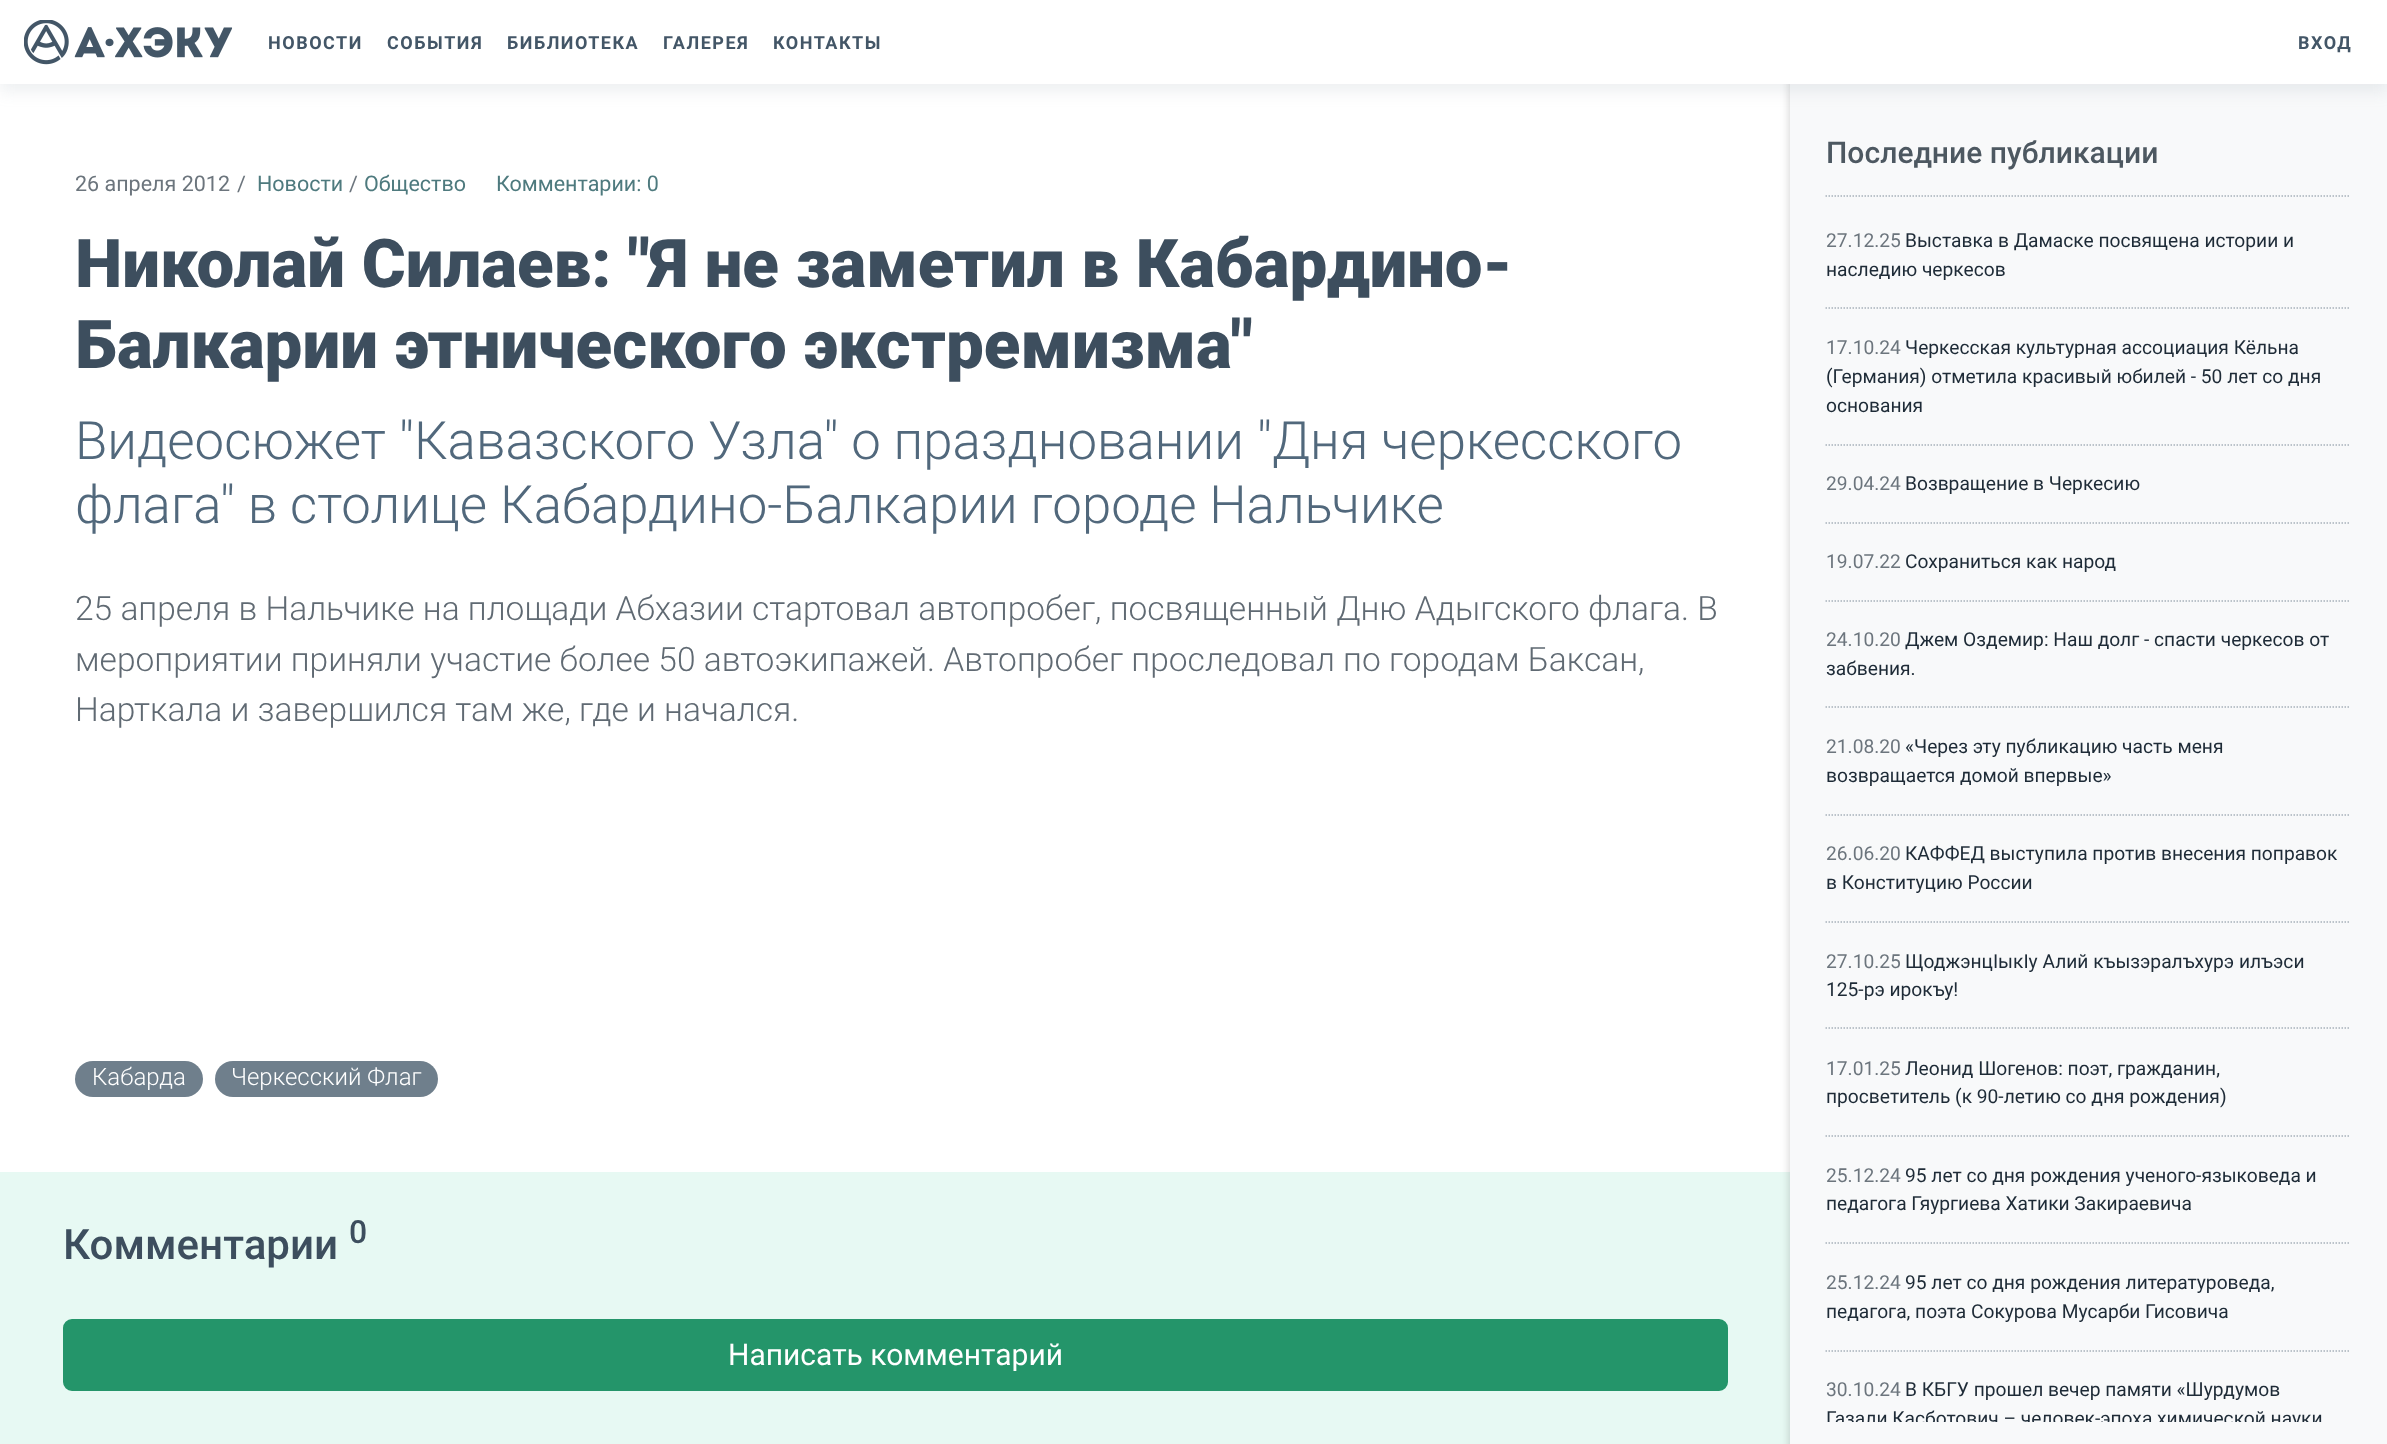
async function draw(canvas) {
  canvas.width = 2387
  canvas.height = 1444
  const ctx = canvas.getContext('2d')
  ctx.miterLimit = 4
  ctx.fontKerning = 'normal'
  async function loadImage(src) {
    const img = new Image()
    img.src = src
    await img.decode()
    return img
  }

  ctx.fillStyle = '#fff'
  ctx.fillRect(0, 0, 2387, 1444)
  ctx.fillStyle = '#e7f9f3'
  ctx.fillRect(0, 1172, 1790, 272)
  ctx.fillStyle = '#00000033'
  ctx.filter = 'blur(5px)'
  ctx.beginPath()
  ctx.rect(1790, -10, 597, 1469)
  ctx.fill()
  ctx.filter = 'none'
  ctx.fillStyle = '#f8f9fa'
  ctx.fillRect(1790, 84, 597, 1360)
  ctx.fillStyle = '#8a9ba526'
  ctx.filter = 'blur(7.5px)'
  ctx.beginPath()
  ctx.rect(0, 8, 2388, 84)
  ctx.fill()
  ctx.filter = 'none'
  ctx.fillStyle = '#fff'
  ctx.fillRect(0, 0, 2387, 84)
  ctx.drawImage(await loadImage('image0.png'), 24, 20, 209, 45)
  ctx.letterSpacing = '1.5px'
  ctx.font = 'bold 18px Roboto'
  ctx.fillStyle = '#435667'
  ctx.fillText('НОВОСТИ', 268, 49)
  ctx.fillText('СОБЫТИЯ', 387, 49)
  ctx.fillText('БИБЛИОТЕКА', 507, 49)
  ctx.fillText('ГАЛЕРЕЯ', 663, 49)
  ctx.fillText('КОНТАКТЫ', 773, 49)
  ctx.fillText('ВХОД', 2298, 49)
  ctx.letterSpacing = '0px'
  ctx.font = '21.5px Roboto'
  ctx.fillStyle = '#6c757d'
  ctx.fillText('26 апреля 2012', 75, 191)
  ctx.fillText('/', 237, 191)
  ctx.fillStyle = '#4e7a7e'
  ctx.fillText('Новости', 257, 191)
  ctx.fillStyle = '#6c757d'
  ctx.fillText('/', 349, 191)
  ctx.fillStyle = '#4e7a7e'
  ctx.fillText('Общество', 364, 191)
  ctx.fillText('Комментарии: 0', 496, 191)
  ctx.font = '900 67.2px Roboto'
  ctx.fillStyle = '#3d4e5e'
  ctx.fillText('Николай Силаев: "Я не заметил в Кабардино-', 75, 287)
  ctx.fillText('Балкарии этнического экстремизма"', 75, 368)
  ctx.font = '300 52.8px Roboto'
  ctx.fillStyle = '#51687c'
  ctx.fillText('Видеосюжет "Кавазского Узла" о праздновании "Дня черкесского', 75, 459)
  ctx.fillText('флага" в столице Кабардино-Балкарии городе Нальчике', 75, 523)
  ctx.font = '300 33.6px Roboto'
  ctx.fillStyle = '#606a73'
  ctx.fillText('25 апреля в Нальчике на площади Абхазии стартовал автопробег, посвященный Дню Адыгского флага. В', 75, 620)
  ctx.fillText('мероприятии приняли участие более 50 автоэкипажей. Автопробег проследовал по городам Баксан,', 75, 671)
  ctx.fillText('Нарткала и завершился там же, где и начался.', 75, 721)
  ctx.fillStyle = '#6f7f8c'
  ctx.beginPath()
  ctx.roundRect(75, 1061, 128, 36, 18)
  ctx.fill()
  ctx.font = '300 24px Roboto'
  ctx.fillStyle = '#fff'
  ctx.fillText('Кабарда', 92, 1085)
  ctx.fillStyle = '#6f7f8c'
  ctx.beginPath()
  ctx.roundRect(215, 1061, 223, 36, 18)
  ctx.fill()
  ctx.fillStyle = '#fff'
  ctx.fillText('Черкесский Флаг', 231, 1085)
  ctx.font = '500 42px Roboto'
  ctx.fillStyle = '#3d4e5e'
  ctx.fillText('Комментарии', 63, 1259)
  ctx.font = '500 32px Roboto'
  ctx.fillText('0', 349, 1243)
  ctx.fillStyle = '#24956a'
  ctx.beginPath()
  ctx.roundRect(64, 1320, 1663, 70, 8)
  ctx.fill()
  ctx.strokeStyle = '#24956a'
  ctx.lineWidth = 2
  ctx.stroke()
  ctx.font = '30px Roboto'
  ctx.fillStyle = '#fff'
  ctx.fillText('Написать комментарий', 728, 1365)
  ctx.beginPath()
  ctx.moveTo(1825.5, 196)
  ctx.lineTo(2350.5, 196)
  ctx.strokeStyle = '#a7b1ba'
  ctx.lineWidth = 1.5
  ctx.setLineDash([1.5, 1.5])
  ctx.stroke()
  ctx.font = '500 30px Roboto'
  ctx.fillStyle = '#4d5861'
  ctx.fillText('Последние публикации', 1826, 163)
  ctx.beginPath()
  ctx.moveTo(1825.5, 308)
  ctx.lineTo(2350.5, 308)
  ctx.stroke()
  ctx.font = '19.2px Roboto'
  ctx.fillStyle = '#6c757d'
  ctx.fillText('27.12.25', 1826, 247)
  ctx.fillStyle = '#1e2b37'
  ctx.fillText('Выставка в Дамаске посвящена истории и', 1905, 247)
  ctx.fillText('наследию черкесов', 1826, 276)
  ctx.beginPath()
  ctx.moveTo(1825.5, 445)
  ctx.lineTo(2350.5, 445)
  ctx.stroke()
  ctx.fillStyle = '#6c757d'
  ctx.fillText('17.10.24', 1826, 354)
  ctx.fillStyle = '#1e2b37'
  ctx.fillText('Черкесская культурная ассоциация Кёльна', 1905, 354)
  ctx.fillText('(Германия) отметила красивый юбилей - 50 лет со дня', 1826, 383)
  ctx.fillText('основания', 1826, 412)
  ctx.beginPath()
  ctx.moveTo(1825.5, 523)
  ctx.lineTo(2350.5, 523)
  ctx.stroke()
  ctx.fillStyle = '#6c757d'
  ctx.fillText('29.04.24', 1826, 490)
  ctx.fillStyle = '#1e2b37'
  ctx.fillText('Возвращение в Черкесию', 1905, 490)
  ctx.beginPath()
  ctx.moveTo(1825.5, 601)
  ctx.lineTo(2350.5, 601)
  ctx.stroke()
  ctx.fillStyle = '#6c757d'
  ctx.fillText('19.07.22', 1826, 568)
  ctx.fillStyle = '#1e2b37'
  ctx.fillText('Сохраниться как народ', 1905, 568)
  ctx.beginPath()
  ctx.moveTo(1825.5, 707)
  ctx.lineTo(2350.5, 707)
  ctx.stroke()
  ctx.fillStyle = '#6c757d'
  ctx.fillText('24.10.20', 1826, 646)
  ctx.fillStyle = '#1e2b37'
  ctx.fillText('Джем Оздемир: Наш долг - спасти черкесов от', 1905, 646)
  ctx.fillText('забвения.', 1826, 675)
  ctx.beginPath()
  ctx.moveTo(1825.5, 815)
  ctx.lineTo(2350.5, 815)
  ctx.stroke()
  ctx.fillStyle = '#6c757d'
  ctx.fillText('21.08.20', 1826, 753)
  ctx.fillStyle = '#1e2b37'
  ctx.fillText('«Через эту публикацию часть меня', 1905, 753)
  ctx.fillText('возвращается домой впервые»', 1826, 782)
  ctx.beginPath()
  ctx.moveTo(1825.5, 922)
  ctx.lineTo(2350.5, 922)
  ctx.stroke()
  ctx.fillStyle = '#6c757d'
  ctx.fillText('26.06.20', 1826, 860)
  ctx.fillStyle = '#1e2b37'
  ctx.fillText('КАФФЕД выступила против внесения поправок', 1905, 860)
  ctx.fillText('в Конституцию России', 1826, 889)
  ctx.beginPath()
  ctx.moveTo(1825.5, 1028)
  ctx.lineTo(2350.5, 1028)
  ctx.stroke()
  ctx.fillStyle = '#6c757d'
  ctx.fillText('27.10.25', 1826, 968)
  ctx.fillStyle = '#1e2b37'
  ctx.fillText('ЩоджэнцIыкIу Алий къызэралъхурэ илъэси', 1905, 968)
  ctx.fillText('125-рэ ирокъу!', 1826, 996)
  ctx.beginPath()
  ctx.moveTo(1825.5, 1136)
  ctx.lineTo(2350.5, 1136)
  ctx.stroke()
  ctx.fillStyle = '#6c757d'
  ctx.fillText('17.01.25', 1826, 1075)
  ctx.fillStyle = '#1e2b37'
  ctx.fillText('Леонид Шогенов: поэт, гражданин,', 1905, 1075)
  ctx.fillText('просветитель (к 90-летию со дня рождения)', 1826, 1103)
  ctx.beginPath()
  ctx.moveTo(1825.5, 1243)
  ctx.lineTo(2350.5, 1243)
  ctx.stroke()
  ctx.fillStyle = '#6c757d'
  ctx.fillText('25.12.24', 1826, 1182)
  ctx.fillStyle = '#1e2b37'
  ctx.fillText('95 лет со дня рождения ученого-языковеда и', 1905, 1182)
  ctx.fillText('педагога Гяургиева Хатики Закираевича', 1826, 1210)
  ctx.beginPath()
  ctx.moveTo(1825.5, 1351)
  ctx.lineTo(2350.5, 1351)
  ctx.stroke()
  ctx.fillStyle = '#6c757d'
  ctx.fillText('25.12.24', 1826, 1289)
  ctx.fillStyle = '#1e2b37'
  ctx.fillText('95 лет со дня рождения литературоведа,', 1905, 1289)
  ctx.fillText('педагога, поэта Сокурова Мусарби Гисовича', 1826, 1318)
  ctx.fillStyle = '#6c757d'
  ctx.fillText('30.10.24', 1826, 1396)
  ctx.fillStyle = '#1e2b37'
  ctx.fillText('В КБГУ прошел вечер памяти «Шурдумов', 1905, 1396)
  ctx.save()
  ctx.beginPath()
  ctx.rect(1826, 203, 525, 1219)
  ctx.clip()
  ctx.fillText('Газали Касботович – человек-эпоха химической науки', 1826, 1425)
  ctx.restore()
}

draw(document.querySelector('canvas'))
